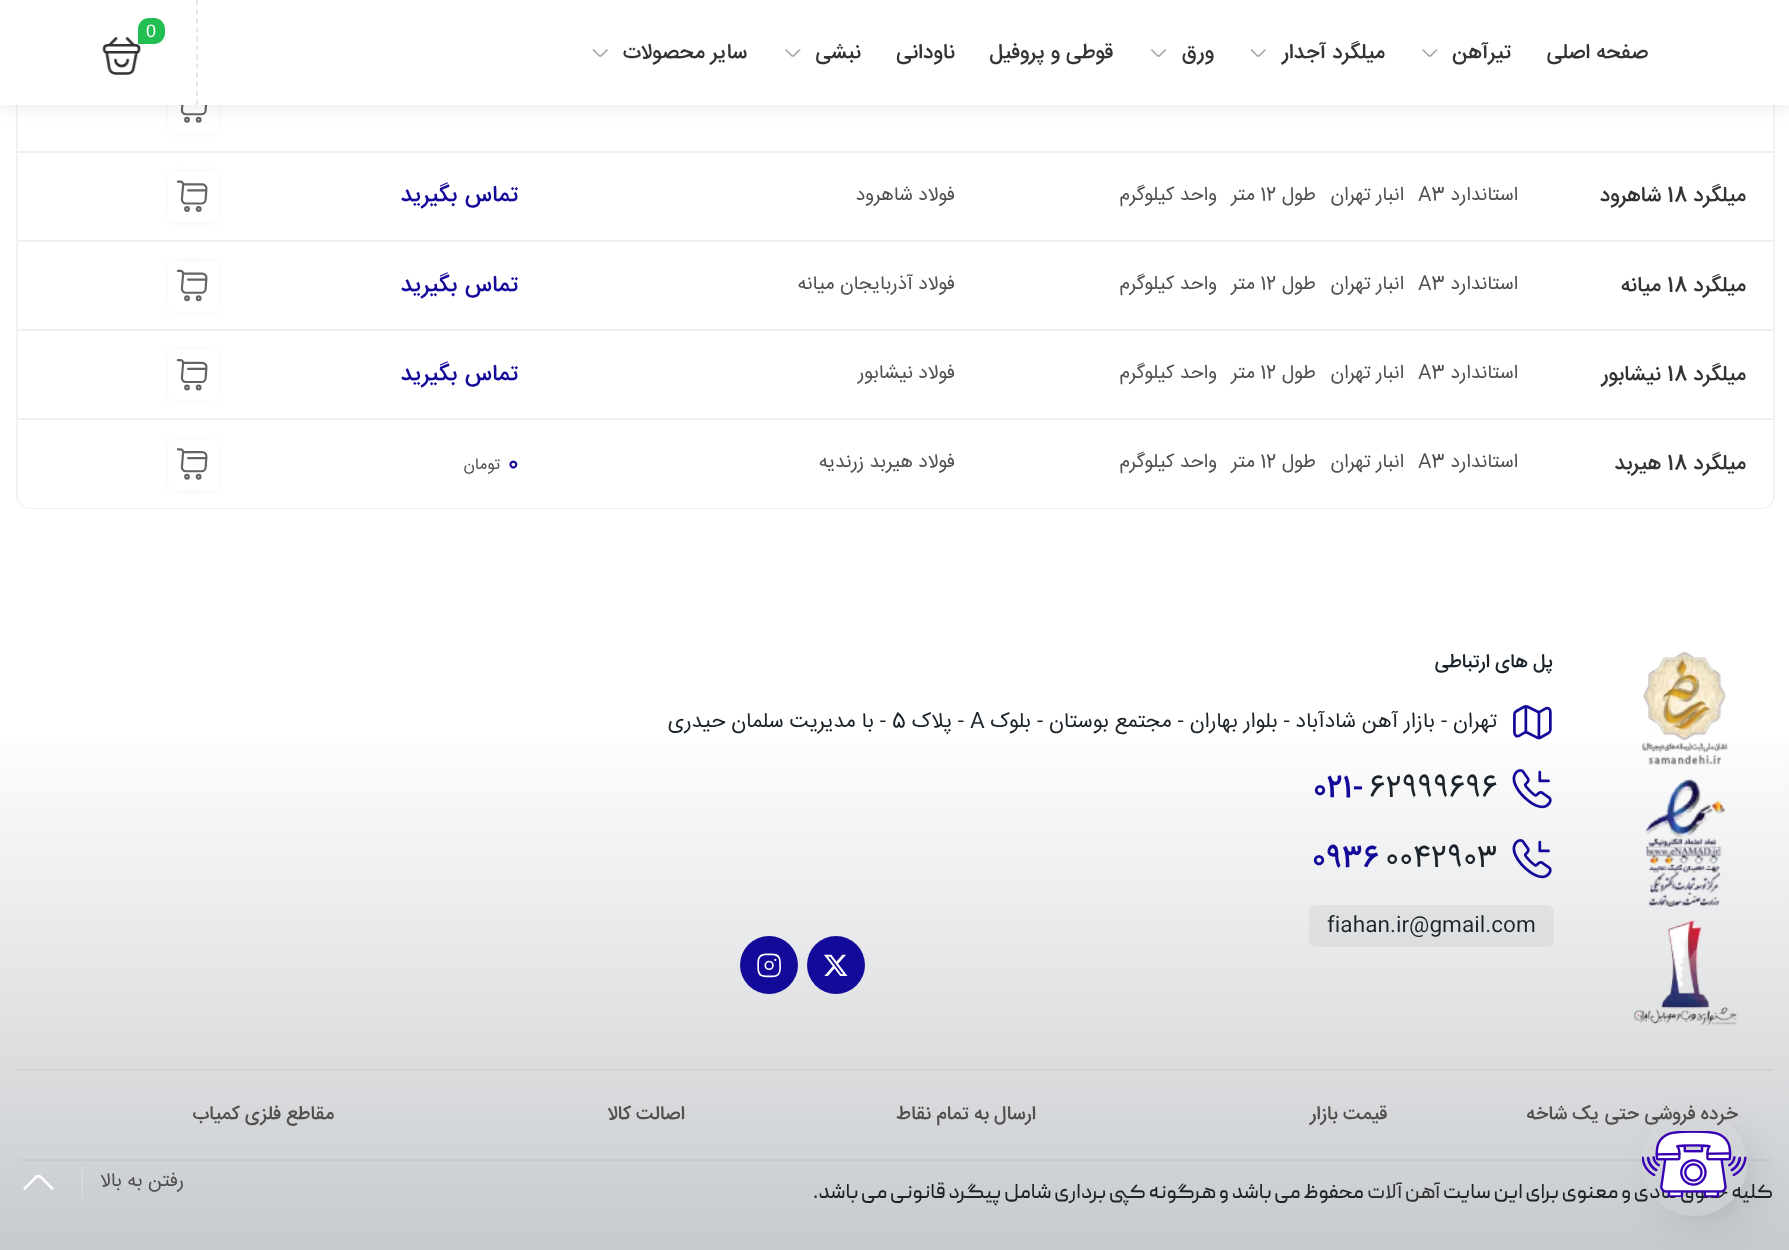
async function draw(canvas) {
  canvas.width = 1789
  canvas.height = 1250
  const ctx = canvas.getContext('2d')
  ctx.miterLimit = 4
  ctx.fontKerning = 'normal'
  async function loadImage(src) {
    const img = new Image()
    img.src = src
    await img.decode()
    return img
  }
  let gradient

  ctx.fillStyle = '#fff'
  ctx.fillRect(0, 0, 1789, 1250)
  ctx.beginPath()
  ctx.roundRect(17, -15, 1757, 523, 13)
  ctx.strokeStyle = '#f2f2f2'
  ctx.lineWidth = 2
  ctx.stroke()
  ctx.beginPath()
  ctx.roundRect(18, -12, 1755, 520, 12)
  ctx.fill()
  ctx.fillStyle = '#ddd'
  ctx.filter = 'blur(4.5px)'
  ctx.beginPath()
  ctx.roundRect(172, 86, 43, 44, 4)
  ctx.fill()
  ctx.filter = 'none'
  ctx.fillStyle = '#fff'
  ctx.beginPath()
  ctx.roundRect(168, 82, 51, 51, 7)
  ctx.fill()
  ctx.drawImage(await loadImage('image4.png'), 180, 105, 28, 18)
  ctx.fillStyle = '#0000001a'
  ctx.filter = 'blur(9.5px)'
  ctx.beginPath()
  ctx.rect(0, 0, 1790, 105)
  ctx.fill()
  ctx.filter = 'none'
  ctx.fillStyle = '#fff'
  ctx.fillRect(0, 0, 1789, 105)
  ctx.beginPath()
  ctx.moveTo(197, 0)
  ctx.lineTo(197, 105)
  ctx.strokeStyle = '#e4e4e4'
  ctx.lineWidth = 1.8
  ctx.setLineDash([5.25, 3.82])
  ctx.stroke()
  ctx.drawImage(await loadImage('image0.png'), 102, 37, 40, 38)
  ctx.fillStyle = '#23bf53'
  ctx.beginPath()
  ctx.roundRect(138, 18, 27, 26, [11, 11, 11, 0])
  ctx.fill()
  ctx.font = '18px Liberation Sans'
  ctx.fillStyle = '#fff'
  ctx.fillText('0', 146, 37)
  ctx.direction = 'rtl'
  ctx.font = '500 21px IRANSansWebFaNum'
  ctx.fillStyle = '#333'
  ctx.fillText('صفحه اصلی', 1648, 58)
  ctx.fillText('تیرآهن', 1511, 58)
  ctx.drawImage(await loadImage('image1.png'), 1421, 49, 17, 8)
  ctx.fillText('میلگرد آجدار', 1385, 58)
  ctx.drawImage(await loadImage('image2.png'), 1250, 49, 16, 8)
  ctx.fillText('ورق', 1214, 58)
  ctx.drawImage(await loadImage('image3.png'), 1150, 49, 17, 8)
  ctx.fillText('قوطی و پروفیل', 1113, 58)
  ctx.fillText('ناودانی', 955, 58)
  ctx.fillText('نبشی', 861, 58)
  ctx.drawImage(await loadImage('image1.png'), 784, 49, 17, 8)
  ctx.fillText('سایر محصولات', 747, 58)
  ctx.drawImage(await loadImage('image2.png'), 592, 49, 16, 8)
  ctx.fillStyle = '#eeeff1'
  ctx.fillRect(18, 151, 1757, 2)
  ctx.fillRect(18, 240, 1757, 2)
  ctx.fillStyle = '#333'
  ctx.fillText('میلگرد', 1746, 201)
  ctx.direction = 'ltr'
  ctx.fillText('18', 1667, 201)
  ctx.direction = 'rtl'
  ctx.fillText('شاهرود', 1661, 201)
  ctx.font = '19.25px IRANSansWebFaNum'
  ctx.fillStyle = '#505050'
  ctx.fillText('استاندارد', 1518, 200)
  ctx.direction = 'ltr'
  ctx.fillText('A3', 1418, 200)
  ctx.direction = 'rtl'
  ctx.fillText('انبار تهران', 1404, 200)
  ctx.fillText('طول', 1316, 200)
  ctx.direction = 'ltr'
  ctx.fillText('12', 1260, 200)
  ctx.direction = 'rtl'
  ctx.fillText('متر', 1255, 200)
  ctx.fillText('واحد کیلوگرم', 1217, 200)
  ctx.fillText('فولاد شاهرود', 955, 200)
  ctx.letterSpacing = '-0.25px'
  ctx.wordSpacing = '2px'
  ctx.font = '500 22.75px IRANSansWebFaNum'
  ctx.fillStyle = '#140a9a'
  ctx.fillText('تماس بگیرید', 518, 201)
  ctx.fillStyle = '#ddd'
  ctx.filter = 'blur(4.5px)'
  ctx.beginPath()
  ctx.roundRect(172, 175, 43, 44, 4)
  ctx.fill()
  ctx.filter = 'none'
  ctx.fillStyle = '#fff'
  ctx.beginPath()
  ctx.roundRect(168, 172, 51, 50, 7)
  ctx.fill()
  ctx.drawImage(await loadImage('image5.png'), 176, 180, 32, 32)
  ctx.fillStyle = '#eeeff1'
  ctx.fillRect(18, 329, 1757, 2)
  ctx.letterSpacing = '0px'
  ctx.wordSpacing = '0px'
  ctx.font = '500 21px IRANSansWebFaNum'
  ctx.fillStyle = '#333'
  ctx.fillText('میلگرد', 1746, 291)
  ctx.direction = 'ltr'
  ctx.fillText('18', 1667, 291)
  ctx.direction = 'rtl'
  ctx.fillText('میانه', 1661, 291)
  ctx.font = '19.25px IRANSansWebFaNum'
  ctx.fillStyle = '#505050'
  ctx.fillText('استاندارد', 1518, 289)
  ctx.direction = 'ltr'
  ctx.fillText('A3', 1418, 289)
  ctx.direction = 'rtl'
  ctx.fillText('انبار تهران', 1404, 289)
  ctx.fillText('طول', 1316, 289)
  ctx.direction = 'ltr'
  ctx.fillText('12', 1260, 289)
  ctx.direction = 'rtl'
  ctx.fillText('متر', 1255, 289)
  ctx.fillText('واحد کیلوگرم', 1217, 289)
  ctx.fillText('فولاد آذربایجان میانه', 955, 289)
  ctx.letterSpacing = '-0.25px'
  ctx.wordSpacing = '2px'
  ctx.font = '500 22.75px IRANSansWebFaNum'
  ctx.fillStyle = '#140a9a'
  ctx.fillText('تماس بگیرید', 518, 291)
  ctx.fillStyle = '#ddd'
  ctx.filter = 'blur(4.5px)'
  ctx.beginPath()
  ctx.roundRect(172, 264, 43, 44, 4)
  ctx.fill()
  ctx.filter = 'none'
  ctx.fillStyle = '#fff'
  ctx.beginPath()
  ctx.roundRect(168, 261, 51, 51, 7)
  ctx.fill()
  ctx.drawImage(await loadImage('image6.png'), 176, 269, 32, 33)
  ctx.fillStyle = '#eeeff1'
  ctx.fillRect(18, 418, 1757, 2)
  ctx.letterSpacing = '0px'
  ctx.wordSpacing = '0px'
  ctx.font = '500 21px IRANSansWebFaNum'
  ctx.fillStyle = '#333'
  ctx.fillText('میلگرد', 1746, 380)
  ctx.direction = 'ltr'
  ctx.fillText('18', 1667, 380)
  ctx.direction = 'rtl'
  ctx.fillText('نیشابور', 1661, 380)
  ctx.font = '19.25px IRANSansWebFaNum'
  ctx.fillStyle = '#505050'
  ctx.fillText('استاندارد', 1518, 378)
  ctx.direction = 'ltr'
  ctx.fillText('A3', 1418, 378)
  ctx.direction = 'rtl'
  ctx.fillText('انبار تهران', 1404, 378)
  ctx.fillText('طول', 1316, 378)
  ctx.direction = 'ltr'
  ctx.fillText('12', 1260, 378)
  ctx.direction = 'rtl'
  ctx.fillText('متر', 1255, 378)
  ctx.fillText('واحد کیلوگرم', 1217, 378)
  ctx.fillText('فولاد نیشابور', 955, 378)
  ctx.letterSpacing = '-0.25px'
  ctx.wordSpacing = '2px'
  ctx.font = '500 22.75px IRANSansWebFaNum'
  ctx.fillStyle = '#140a9a'
  ctx.fillText('تماس بگیرید', 518, 380)
  ctx.fillStyle = '#ddd'
  ctx.filter = 'blur(4.5px)'
  ctx.beginPath()
  ctx.roundRect(172, 354, 43, 43, 4)
  ctx.fill()
  ctx.filter = 'none'
  ctx.fillStyle = '#fff'
  ctx.beginPath()
  ctx.roundRect(168, 350, 51, 51, 7)
  ctx.fill()
  ctx.drawImage(await loadImage('image7.png'), 176, 359, 32, 32)
  ctx.letterSpacing = '0px'
  ctx.wordSpacing = '0px'
  ctx.font = '500 21px IRANSansWebFaNum'
  ctx.fillStyle = '#333'
  ctx.fillText('میلگرد', 1746, 469)
  ctx.direction = 'ltr'
  ctx.fillText('18', 1667, 469)
  ctx.direction = 'rtl'
  ctx.fillText('هیربد', 1661, 469)
  ctx.font = '19.25px IRANSansWebFaNum'
  ctx.fillStyle = '#505050'
  ctx.fillText('استاندارد', 1518, 467)
  ctx.direction = 'ltr'
  ctx.fillText('A3', 1418, 467)
  ctx.direction = 'rtl'
  ctx.fillText('انبار تهران', 1404, 467)
  ctx.fillText('طول', 1316, 467)
  ctx.direction = 'ltr'
  ctx.fillText('12', 1260, 467)
  ctx.direction = 'rtl'
  ctx.fillText('متر', 1255, 467)
  ctx.fillText('واحد کیلوگرم', 1217, 467)
  ctx.fillText('فولاد هیربد زرندیه', 955, 467)
  ctx.letterSpacing = '-0.25px'
  ctx.direction = 'ltr'
  ctx.font = '500 22.75px IRANSansWebFaNum'
  ctx.fillStyle = '#140a9a'
  ctx.fillText('0', 508, 469)
  ctx.direction = 'rtl'
  ctx.font = '16px IRANSansWebFaNum'
  ctx.fillStyle = '#505050'
  ctx.fillText('تومان', 500, 469)
  ctx.fillStyle = '#ddd'
  ctx.filter = 'blur(4.5px)'
  ctx.beginPath()
  ctx.roundRect(172, 443, 43, 44, 4)
  ctx.fill()
  ctx.filter = 'none'
  ctx.fillStyle = '#fff'
  ctx.beginPath()
  ctx.roundRect(168, 439, 51, 51, 7)
  ctx.fill()
  ctx.drawImage(await loadImage('image8.png'), 176, 448, 32, 32)
  gradient = ctx.createLinearGradient(895, 586, 895, 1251)
  gradient.addColorStop(0.2, '#fff')
  gradient.addColorStop(1, '#c7cacd')
  ctx.fillStyle = gradient
  ctx.fillRect(0, 743, 1789, 507)
  gradient = ctx.createLinearGradient(895, 586, 895, 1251)
  gradient.addColorStop(0.2, '#fff')
  gradient.addColorStop(1, '#cfd2d5')
  ctx.fillStyle = gradient
  ctx.fillRect(81, 1167, 2, 32)
  ctx.drawImage(await loadImage('image9.png'), 1641, 651, 87, 114)
  ctx.drawImage(await loadImage('image10.png'), 1645, 779, 81, 128)
  ctx.drawImage(await loadImage('image11.png'), 1633, 919, 104, 107)
  ctx.letterSpacing = '0px'
  ctx.font = '500 19.25px IRANSansWebFaNum'
  ctx.fillStyle = '#1b232a'
  ctx.fillText('پل های ارتباطی', 1553, 667)
  ctx.drawImage(await loadImage('image12.png'), 1513, 705, 39, 35)
  ctx.font = '21px IRANSansWebFaNum'
  ctx.fillText('تهران - بازار آهن شادآباد - بلوار بهاران - مجتمع بوستان - بلوک', 1497, 727)
  ctx.direction = 'ltr'
  ctx.fillText('A', 970, 727)
  ctx.direction = 'rtl'
  ctx.fillText('- پلاک', 964, 727)
  ctx.direction = 'ltr'
  ctx.fillText('5', 892, 727)
  ctx.direction = 'rtl'
  ctx.fillText('- با مدیریت سلمان حیدری', 886, 727)
  ctx.drawImage(await loadImage('image13.png'), 1512, 769, 40, 40)
  ctx.direction = 'ltr'
  ctx.font = '29.75px IRANSansWebFaNum'
  ctx.fillText('62999696', 1369, 796)
  ctx.font = '500 29.75px IRANSansWebFaNum'
  ctx.fillStyle = '#140a9a'
  ctx.fillText('021-', 1313, 796)
  ctx.drawImage(await loadImage('image14.png'), 1512, 839, 40, 40)
  ctx.font = '29.75px IRANSansWebFaNum'
  ctx.fillStyle = '#1b232a'
  ctx.fillText('0042903', 1385, 866)
  ctx.font = '500 29.75px IRANSansWebFaNum'
  ctx.fillStyle = '#140a9a'
  ctx.fillText('0936', 1312, 866)
  ctx.fillStyle = '#d3d3d37a'
  ctx.beginPath()
  ctx.roundRect(1309, 905, 245, 42, 7)
  ctx.fill()
  ctx.font = '21px IRANSansWebFaNum'
  ctx.fillStyle = '#1b232a'
  ctx.fillText('fiahan.ir@gmail.com', 1327, 931)
  ctx.fillStyle = '#140a9a'
  ctx.beginPath()
  ctx.arc(836, 965, 29, 0, 2 * Math.PI)
  ctx.fill()
  ctx.drawImage(await loadImage('image15.png'), 824, 954, 24, 22)
  ctx.beginPath()
  ctx.arc(769, 965, 29, 0, 2 * Math.PI)
  ctx.fill()
  ctx.drawImage(await loadImage('image16.png'), 757, 953, 24, 25)
  ctx.fillStyle = '#d1d3d5'
  ctx.fillRect(18, 1069, 1755, 2)
  ctx.fillStyle = '#c9cbcd'
  ctx.fillRect(18, 1159, 1755, 2)
  ctx.direction = 'rtl'
  ctx.font = '500 19.25px IRANSansWebFaNum'
  ctx.fillStyle = '#505050'
  ctx.fillText('خرده فروشی حتی یک شاخه', 1738, 1119)
  ctx.fillText('قیمت بازار', 1387, 1119)
  ctx.fillText('ارسال به تمام نقاط', 1036, 1119)
  ctx.fillText('اصالت کالا', 685, 1119)
  ctx.fillText('مقاطع فلزی کمیاب', 334, 1119)
  ctx.font = '500 21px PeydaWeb'
  ctx.fillStyle = '#1b232a'
  ctx.fillText('کلیه حقوق مادی و معنوی برای این سایت', 1773, 1198)
  ctx.fillStyle = '#333'
  ctx.fillText('آهن آلات', 1440, 1198)
  ctx.fillStyle = '#1b232a'
  ctx.fillText('محفوظ می باشد و هرگونه کپی برداری شامل پیگرد قانونی می باشد.', 1364, 1198)
  ctx.font = '19.25px IRANSansWebFaNum'
  ctx.fillStyle = '#505050'
  ctx.fillText('رفتن به بالا', 184, 1186)
  ctx.drawImage(await loadImage('image17.png'), 23, 1174, 31, 16)
  ctx.save()
  ctx.beginPath()
  ctx.moveTo(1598, 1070)
  ctx.lineTo(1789, 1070)
  ctx.lineTo(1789, 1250)
  ctx.lineTo(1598, 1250)
  ctx.closePath()
  ctx.moveTo(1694.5, 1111)
  ctx.bezierCurveTo(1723.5, 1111, 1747, 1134.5, 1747, 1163.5)
  ctx.bezierCurveTo(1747, 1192.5, 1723.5, 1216, 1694.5, 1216)
  ctx.bezierCurveTo(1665.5, 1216, 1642, 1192.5, 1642, 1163.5)
  ctx.bezierCurveTo(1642, 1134.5, 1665.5, 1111, 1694.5, 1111)
  ctx.closePath()
  ctx.clip('evenodd')
  ctx.fillStyle = '#1010104d'
  ctx.filter = 'blur(24.5px)'
  ctx.beginPath()
  ctx.roundRect(1673, 1145, 63, 63, 31.5)
  ctx.fill()
  ctx.filter = 'none'
  ctx.restore()
  ctx.drawImage(await loadImage('image18.png'), 1642, 1131, 105, 66)
}

draw(document.querySelector('canvas'))
